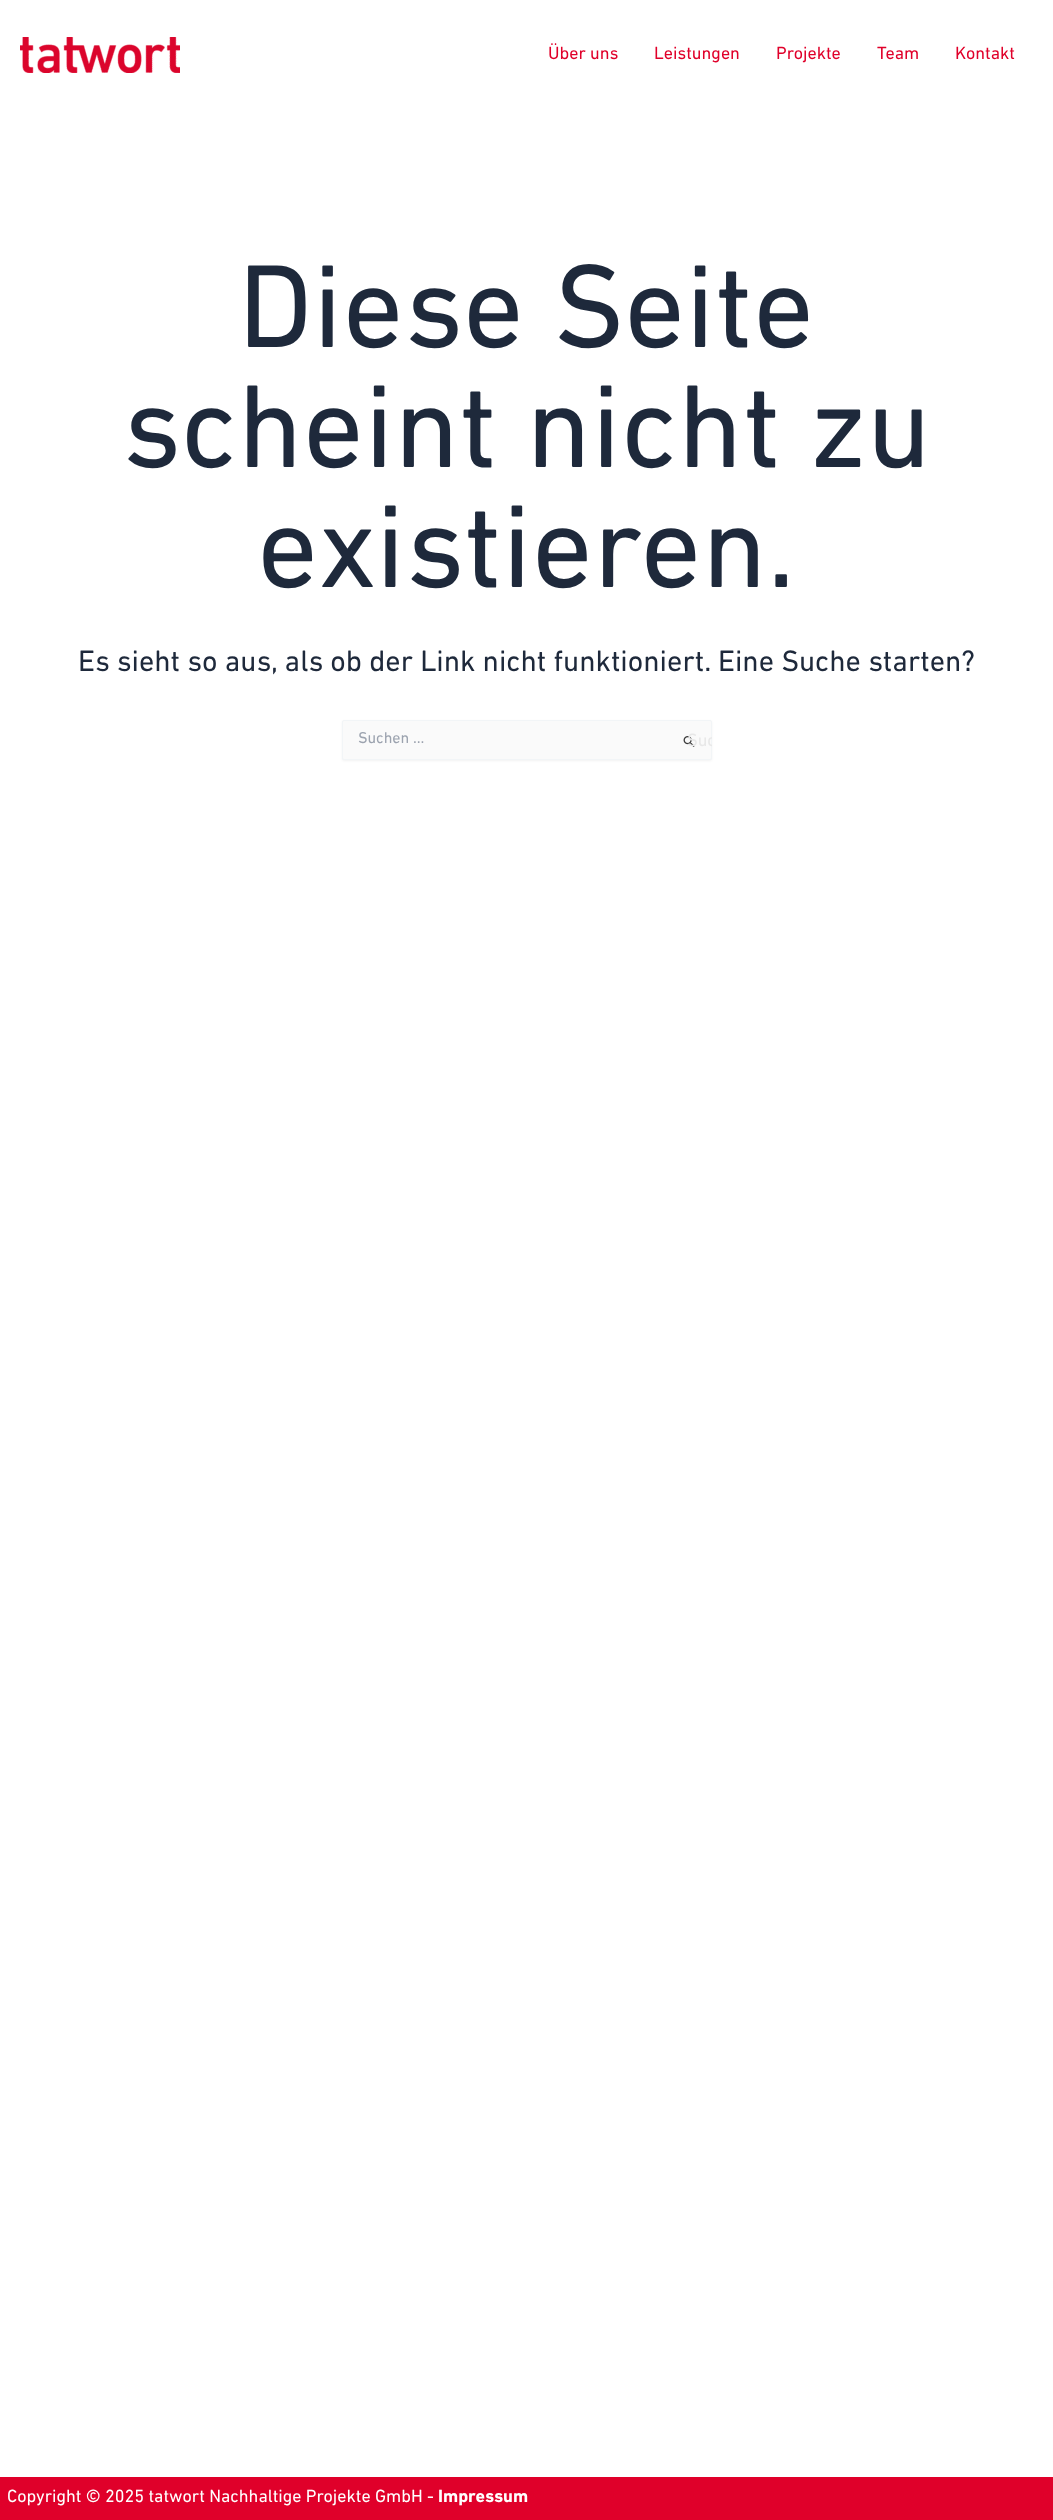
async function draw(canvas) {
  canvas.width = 1053
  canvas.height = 2520
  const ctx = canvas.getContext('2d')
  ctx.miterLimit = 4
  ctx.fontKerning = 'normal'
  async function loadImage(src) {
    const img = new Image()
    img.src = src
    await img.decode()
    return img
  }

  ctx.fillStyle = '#fff'
  ctx.fillRect(0, 0, 1053, 2520)
  ctx.drawImage(await loadImage('image0.png'), 20, 37, 160, 36)
  ctx.font = '18px DIN Next'
  ctx.fillStyle = '#e0002a'
  ctx.fillText('Über uns', 548, 59)
  ctx.fillText('Leistungen', 654, 59)
  ctx.fillText('Projekte', 776, 59)
  ctx.fillText('Team', 877, 59)
  ctx.fillText('Kontakt', 955, 59)
  ctx.font = '120px DIN Next'
  ctx.fillStyle = '#1e293b'
  ctx.fillText('Diese Seite', 238, 347)
  ctx.fillText('scheint nicht zu', 122, 467)
  ctx.fillText('existieren.', 257, 587)
  ctx.font = '30px DIN Next'
  ctx.fillText('Es sieht so aus, als ob der Link nicht funktioniert. Eine Suche starten?', 78, 671)
  ctx.fillStyle = '#0000000d'
  ctx.filter = 'blur(1px)'
  ctx.beginPath()
  ctx.roundRect(342, 721, 370, 40, 2)
  ctx.fill()
  ctx.filter = 'none'
  ctx.fillStyle = '#fafafa'
  ctx.beginPath()
  ctx.roundRect(342.5, 720.5, 369, 39, 1.5)
  ctx.fill()
  ctx.strokeStyle = '#f2f5f7'
  ctx.stroke()
  ctx.font = '16px DIN Next'
  ctx.fillStyle = '#9ca3af'
  ctx.fillText('Suchen …', 358, 743)
  ctx.drawImage(await loadImage('image1.png'), 683, 736, 12, 11)
  ctx.save()
  ctx.beginPath()
  ctx.roundRect(667, 720, 45, 44, 2)
  ctx.clip()
  ctx.font = '18px DIN Next'
  ctx.fillStyle = '#e8e8e8'
  ctx.fillText('Suc', 687, 746)
  ctx.restore()
  ctx.fillStyle = '#e0002a'
  ctx.fillRect(0, 2477, 1053, 43)
  ctx.font = '18px DIN Next'
  ctx.fillStyle = '#fff'
  ctx.fillText('Copyright © 2025 tatwort Nachhaltige Projekte GmbH -', 7, 2502)
  ctx.font = 'bold 18px DIN Next'
  ctx.fillText('Impressum', 438, 2502)
}

draw(document.querySelector('canvas'))
